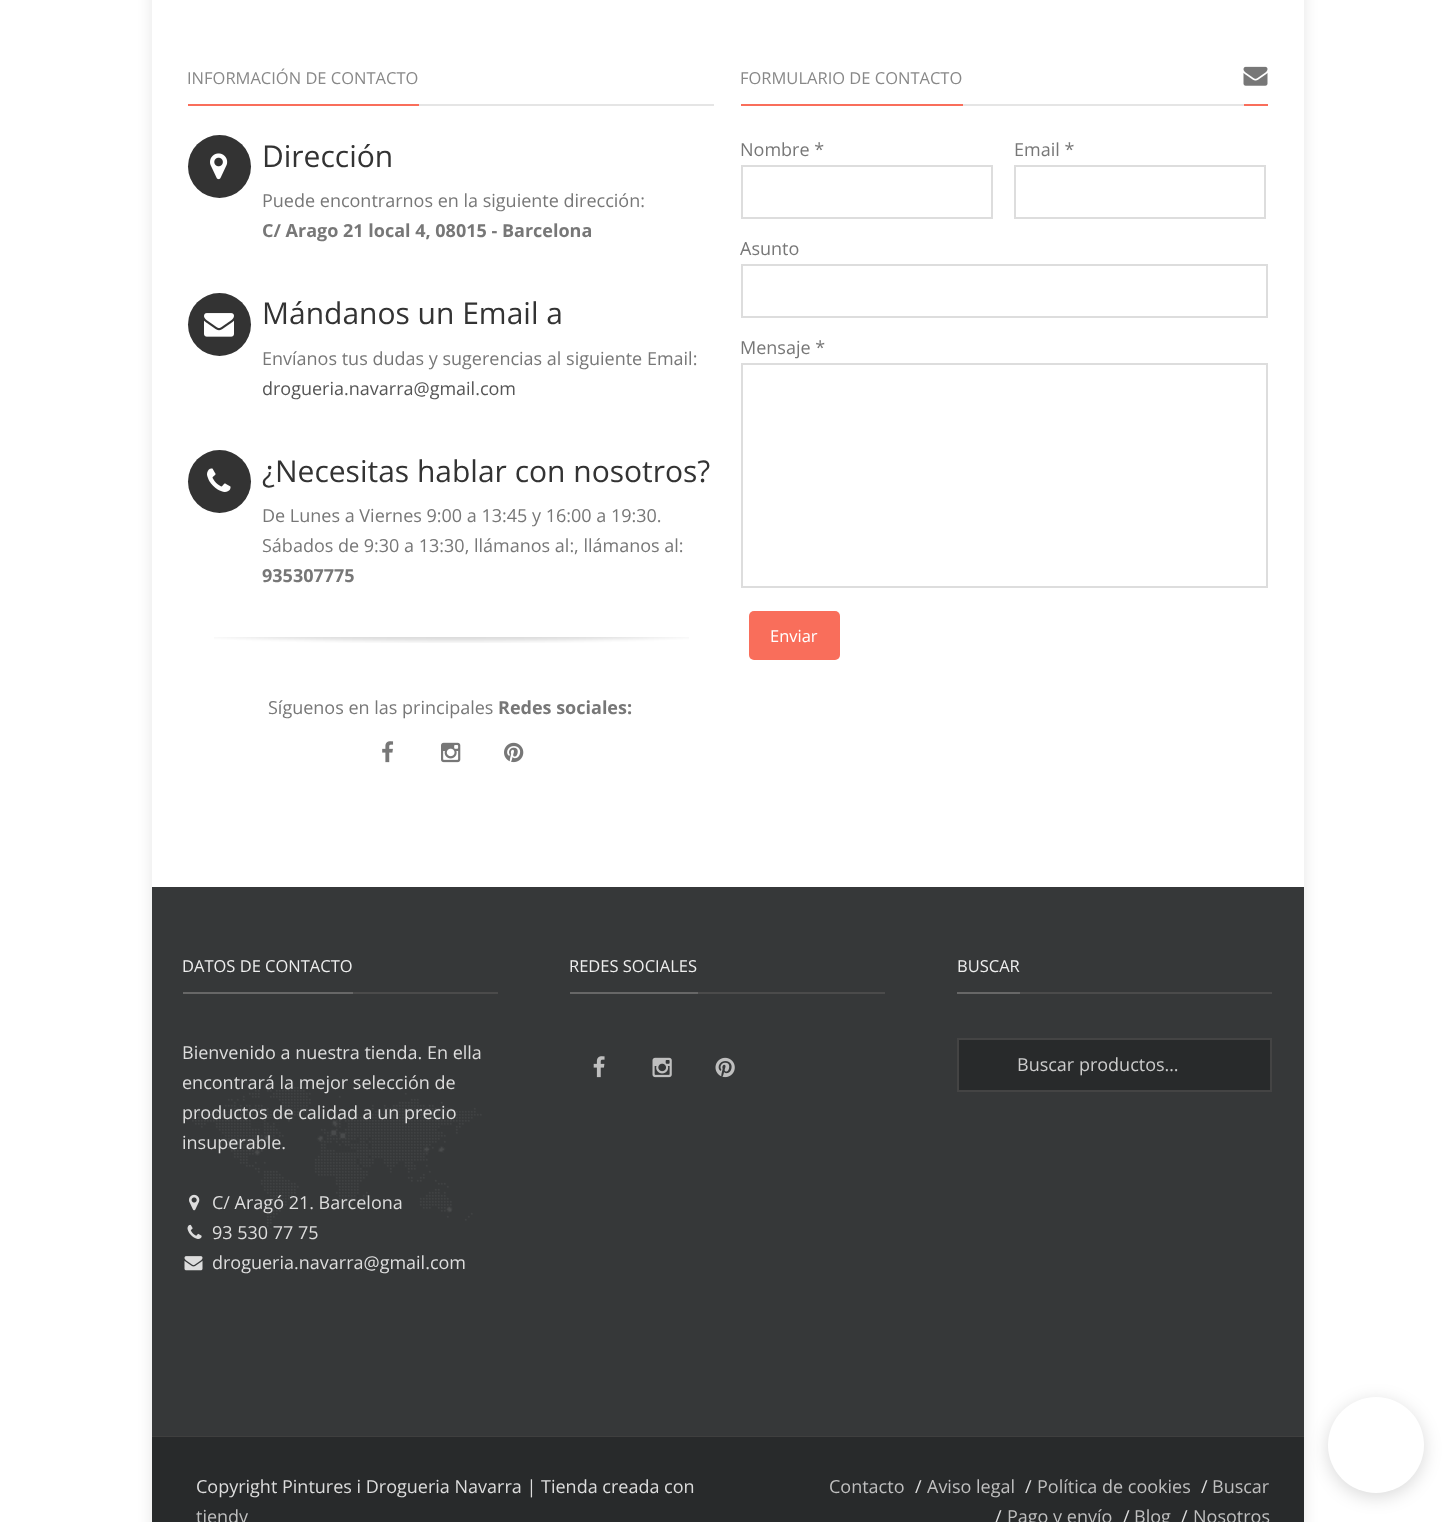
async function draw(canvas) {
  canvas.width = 1453
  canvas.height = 1522
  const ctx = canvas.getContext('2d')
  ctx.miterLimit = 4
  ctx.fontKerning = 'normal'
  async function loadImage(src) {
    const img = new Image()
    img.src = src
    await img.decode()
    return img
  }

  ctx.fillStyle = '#fff'
  ctx.fillRect(0, 0, 1453, 1522)
  ctx.save()
  ctx.beginPath()
  ctx.moveTo(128, 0)
  ctx.lineTo(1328, 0)
  ctx.lineTo(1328, 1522)
  ctx.lineTo(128, 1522)
  ctx.closePath()
  ctx.moveTo(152, -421)
  ctx.lineTo(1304, -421)
  ctx.lineTo(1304, 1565)
  ctx.lineTo(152, 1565)
  ctx.closePath()
  ctx.clip('evenodd')
  ctx.fillStyle = '#0000001a'
  ctx.filter = 'blur(7.5px)'
  ctx.beginPath()
  ctx.rect(152, -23, 1152, 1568)
  ctx.fill()
  ctx.filter = 'none'
  ctx.restore()
  ctx.fillStyle = '#e5e5e5'
  ctx.fillRect(419, 104, 295, 2)
  ctx.fillStyle = '#f96e5b'
  ctx.fillRect(188, 104, 231, 2)
  ctx.font = '16.5px Open Sans'
  ctx.fillStyle = '#888'
  ctx.fillText('INFORMACIÓN DE CONTACTO', 187, 84)
  ctx.fillStyle = '#333'
  ctx.beginPath()
  ctx.arc(219.5, 166.5, 31.5, 0, 2 * Math.PI)
  ctx.fill()
  ctx.drawImage(await loadImage('image0.png'), 210, 153, 18, 27)
  ctx.font = '30px Open Sans'
  ctx.fillText('Dirección', 262, 167)
  ctx.font = '18px Open Sans'
  ctx.fillStyle = '#777'
  ctx.fillText('Puede encontrarnos en la siguiente dirección:', 262, 207)
  ctx.font = 'bold 18px Open Sans'
  ctx.fillText('C/ Arago 21 local 4, 08015 - Barcelona', 262, 237)
  ctx.fillStyle = '#333'
  ctx.beginPath()
  ctx.arc(219.5, 324.5, 31.5, 0, 2 * Math.PI)
  ctx.fill()
  ctx.drawImage(await loadImage('image1.png'), 204, 313, 30, 24)
  ctx.font = '30px Open Sans'
  ctx.fillText('Mándanos un Email a', 262, 324)
  ctx.font = '18px Open Sans'
  ctx.fillStyle = '#777'
  ctx.fillText('Envíanos tus dudas y sugerencias al siguiente Email:', 262, 365)
  ctx.fillStyle = '#555'
  ctx.fillText('drogueria.navarra@gmail.com', 262, 395)
  ctx.fillStyle = '#333'
  ctx.beginPath()
  ctx.arc(219.5, 481.5, 31.5, 0, 2 * Math.PI)
  ctx.fill()
  ctx.drawImage(await loadImage('image2.png'), 207, 468, 24, 24)
  ctx.font = '30px Open Sans'
  ctx.fillText('¿Necesitas hablar con nosotros?', 262, 482)
  ctx.font = '18px Open Sans'
  ctx.fillStyle = '#777'
  ctx.fillText('De Lunes a Viernes 9:00 a 13:45 y 16:00 a 19:30.', 262, 522)
  ctx.fillText('Sábados de 9:30 a 13:30, llámanos al:, llámanos al:', 262, 552)
  ctx.font = 'bold 18px Open Sans'
  ctx.fillText('935307775', 262, 582)
  ctx.drawImage(await loadImage('image3.png'), 214, 637, 475, 6)
  ctx.font = '18px Open Sans'
  ctx.fillText('Síguenos en las principales', 268, 714)
  ctx.font = 'bold 18px Open Sans'
  ctx.fillText('Redes sociales:', 498, 714)
  ctx.drawImage(await loadImage('image4.png'), 382, 741, 12, 22)
  ctx.drawImage(await loadImage('image5.png'), 441, 742, 20, 21)
  ctx.drawImage(await loadImage('image6.png'), 504, 742, 20, 21)
  ctx.fillStyle = '#e5e5e5'
  ctx.fillRect(963, 104, 281, 2)
  ctx.fillStyle = '#f96e5b'
  ctx.fillRect(741, 104, 222, 2)
  ctx.font = '16.5px Open Sans'
  ctx.fillStyle = '#888'
  ctx.fillText('FORMULARIO DE CONTACTO', 740, 84)
  ctx.fillStyle = '#f96e5b'
  ctx.fillRect(1244, 104, 24, 2)
  ctx.drawImage(await loadImage('image7.png'), 1243, 66, 25, 20)
  ctx.font = '18px Open Sans'
  ctx.fillStyle = '#777'
  ctx.fillText('Nombre *', 740, 156)
  ctx.strokeStyle = '#ddd'
  ctx.lineWidth = 2
  ctx.strokeRect(742, 166, 250, 52)
  ctx.fillText('Email *', 1014, 156)
  ctx.strokeRect(1015, 166, 250, 52)
  ctx.fillText('Asunto', 740, 255)
  ctx.strokeRect(742, 265, 525, 52)
  ctx.fillText('Mensaje *', 740, 354)
  ctx.strokeRect(742, 364, 525, 223)
  ctx.fillStyle = '#f96e5b'
  ctx.beginPath()
  ctx.roundRect(749, 611, 91, 49, 5)
  ctx.fill()
  ctx.font = '16.5px Open Sans'
  ctx.fillStyle = '#fff'
  ctx.fillText('Enviar', 770, 642)
  ctx.fillStyle = '#363839'
  ctx.fillRect(152, 887, 1152, 549)
  ctx.fillStyle = '#3f3f3f'
  ctx.fillRect(152, 1436, 1152, 1)
  ctx.drawImage(await loadImage('image8.png'), 192, 1087, 290, 143)
  ctx.fillStyle = '#4b4b4b'
  ctx.fillRect(353, 992, 145, 2)
  ctx.fillStyle = '#676767'
  ctx.fillRect(183, 992, 170, 2)
  ctx.fillStyle = '#eee'
  ctx.fillText('DATOS DE CONTACTO', 182, 972)
  ctx.font = '18px Open Sans'
  ctx.fillStyle = '#ddd'
  ctx.fillText('Bienvenido a nuestra tienda. En ella', 182, 1059)
  ctx.fillText('encontrará la mejor selección de', 182, 1089)
  ctx.fillText('productos de calidad a un precio', 182, 1119)
  ctx.fillText('insuperable.', 182, 1149)
  ctx.drawImage(await loadImage('image9.png'), 189, 1194, 11, 17)
  ctx.fillText('C/ Aragó 21. Barcelona', 212, 1209)
  ctx.drawImage(await loadImage('image10.png'), 187, 1224, 15, 15)
  ctx.fillText('93 530 77 75', 212, 1239)
  ctx.drawImage(await loadImage('image11.png'), 184, 1256, 19, 15)
  ctx.fillText('drogueria.navarra@gmail.com', 212, 1269)
  ctx.fillStyle = '#4b4b4b'
  ctx.fillRect(698, 992, 187, 2)
  ctx.fillStyle = '#676767'
  ctx.fillRect(570, 992, 128, 2)
  ctx.font = '16.5px Open Sans'
  ctx.fillStyle = '#eee'
  ctx.fillText('REDES SOCIALES', 569, 972)
  ctx.drawImage(await loadImage('image12.png'), 593, 1056, 12, 22)
  ctx.drawImage(await loadImage('image13.png'), 652, 1057, 20, 21)
  ctx.drawImage(await loadImage('image14.png'), 715, 1057, 20, 21)
  ctx.fillStyle = '#4b4b4b'
  ctx.fillRect(1020, 992, 252, 2)
  ctx.fillStyle = '#676767'
  ctx.fillRect(957, 992, 63, 2)
  ctx.fillStyle = '#eee'
  ctx.fillText('BUSCAR', 957, 972)
  ctx.fillStyle = '#282a2b'
  ctx.beginPath()
  ctx.rect(958, 1039, 313, 52)
  ctx.fill()
  ctx.strokeStyle = '#444'
  ctx.stroke()
  ctx.font = '18px Open Sans'
  ctx.fillStyle = '#ccc'
  ctx.fillText('Buscar productos…', 1017, 1071)
  ctx.fillStyle = '#282a2b'
  ctx.fillRect(152, 1437, 1152, 85)
  ctx.fillStyle = '#ddd'
  ctx.fillText('Copyright Pintures i Drogueria Navarra | Tienda creada con', 196, 1493)
  ctx.fillStyle = '#bfbfbf'
  ctx.fillText('tiendy', 196, 1523)
  ctx.fillText('Contacto', 829, 1493)
  ctx.fillStyle = '#ddd'
  ctx.fillText('/', 915, 1493)
  ctx.fillStyle = '#bfbfbf'
  ctx.fillText('Aviso legal', 927, 1493)
  ctx.fillStyle = '#ddd'
  ctx.fillText('/', 1025, 1493)
  ctx.fillStyle = '#bfbfbf'
  ctx.fillText('Política de cookies', 1037, 1493)
  ctx.fillStyle = '#ddd'
  ctx.fillText('/', 1201, 1493)
  ctx.fillStyle = '#bfbfbf'
  ctx.fillText('Buscar', 1212, 1493)
  ctx.fillStyle = '#ddd'
  ctx.fillText('/', 995, 1523)
  ctx.fillStyle = '#bfbfbf'
  ctx.fillText('Pago y envío', 1007, 1523)
  ctx.fillStyle = '#ddd'
  ctx.fillText('/', 1123, 1523)
  ctx.fillStyle = '#bfbfbf'
  ctx.fillText('Blog', 1134, 1523)
  ctx.fillStyle = '#ddd'
  ctx.fillText('/', 1181, 1523)
  ctx.fillStyle = '#bfbfbf'
  ctx.fillText('Nosotros', 1193, 1523)
  ctx.fillStyle = '#00000026'
  ctx.filter = 'blur(9px)'
  ctx.beginPath()
  ctx.roundRect(1328, 1401, 96, 96, 48)
  ctx.fill()
  ctx.filter = 'none'
  ctx.fillStyle = '#fff'
  ctx.beginPath()
  ctx.arc(1376, 1445, 48, 0, 2 * Math.PI)
  ctx.fill()
}

draw(document.querySelector('canvas'))
